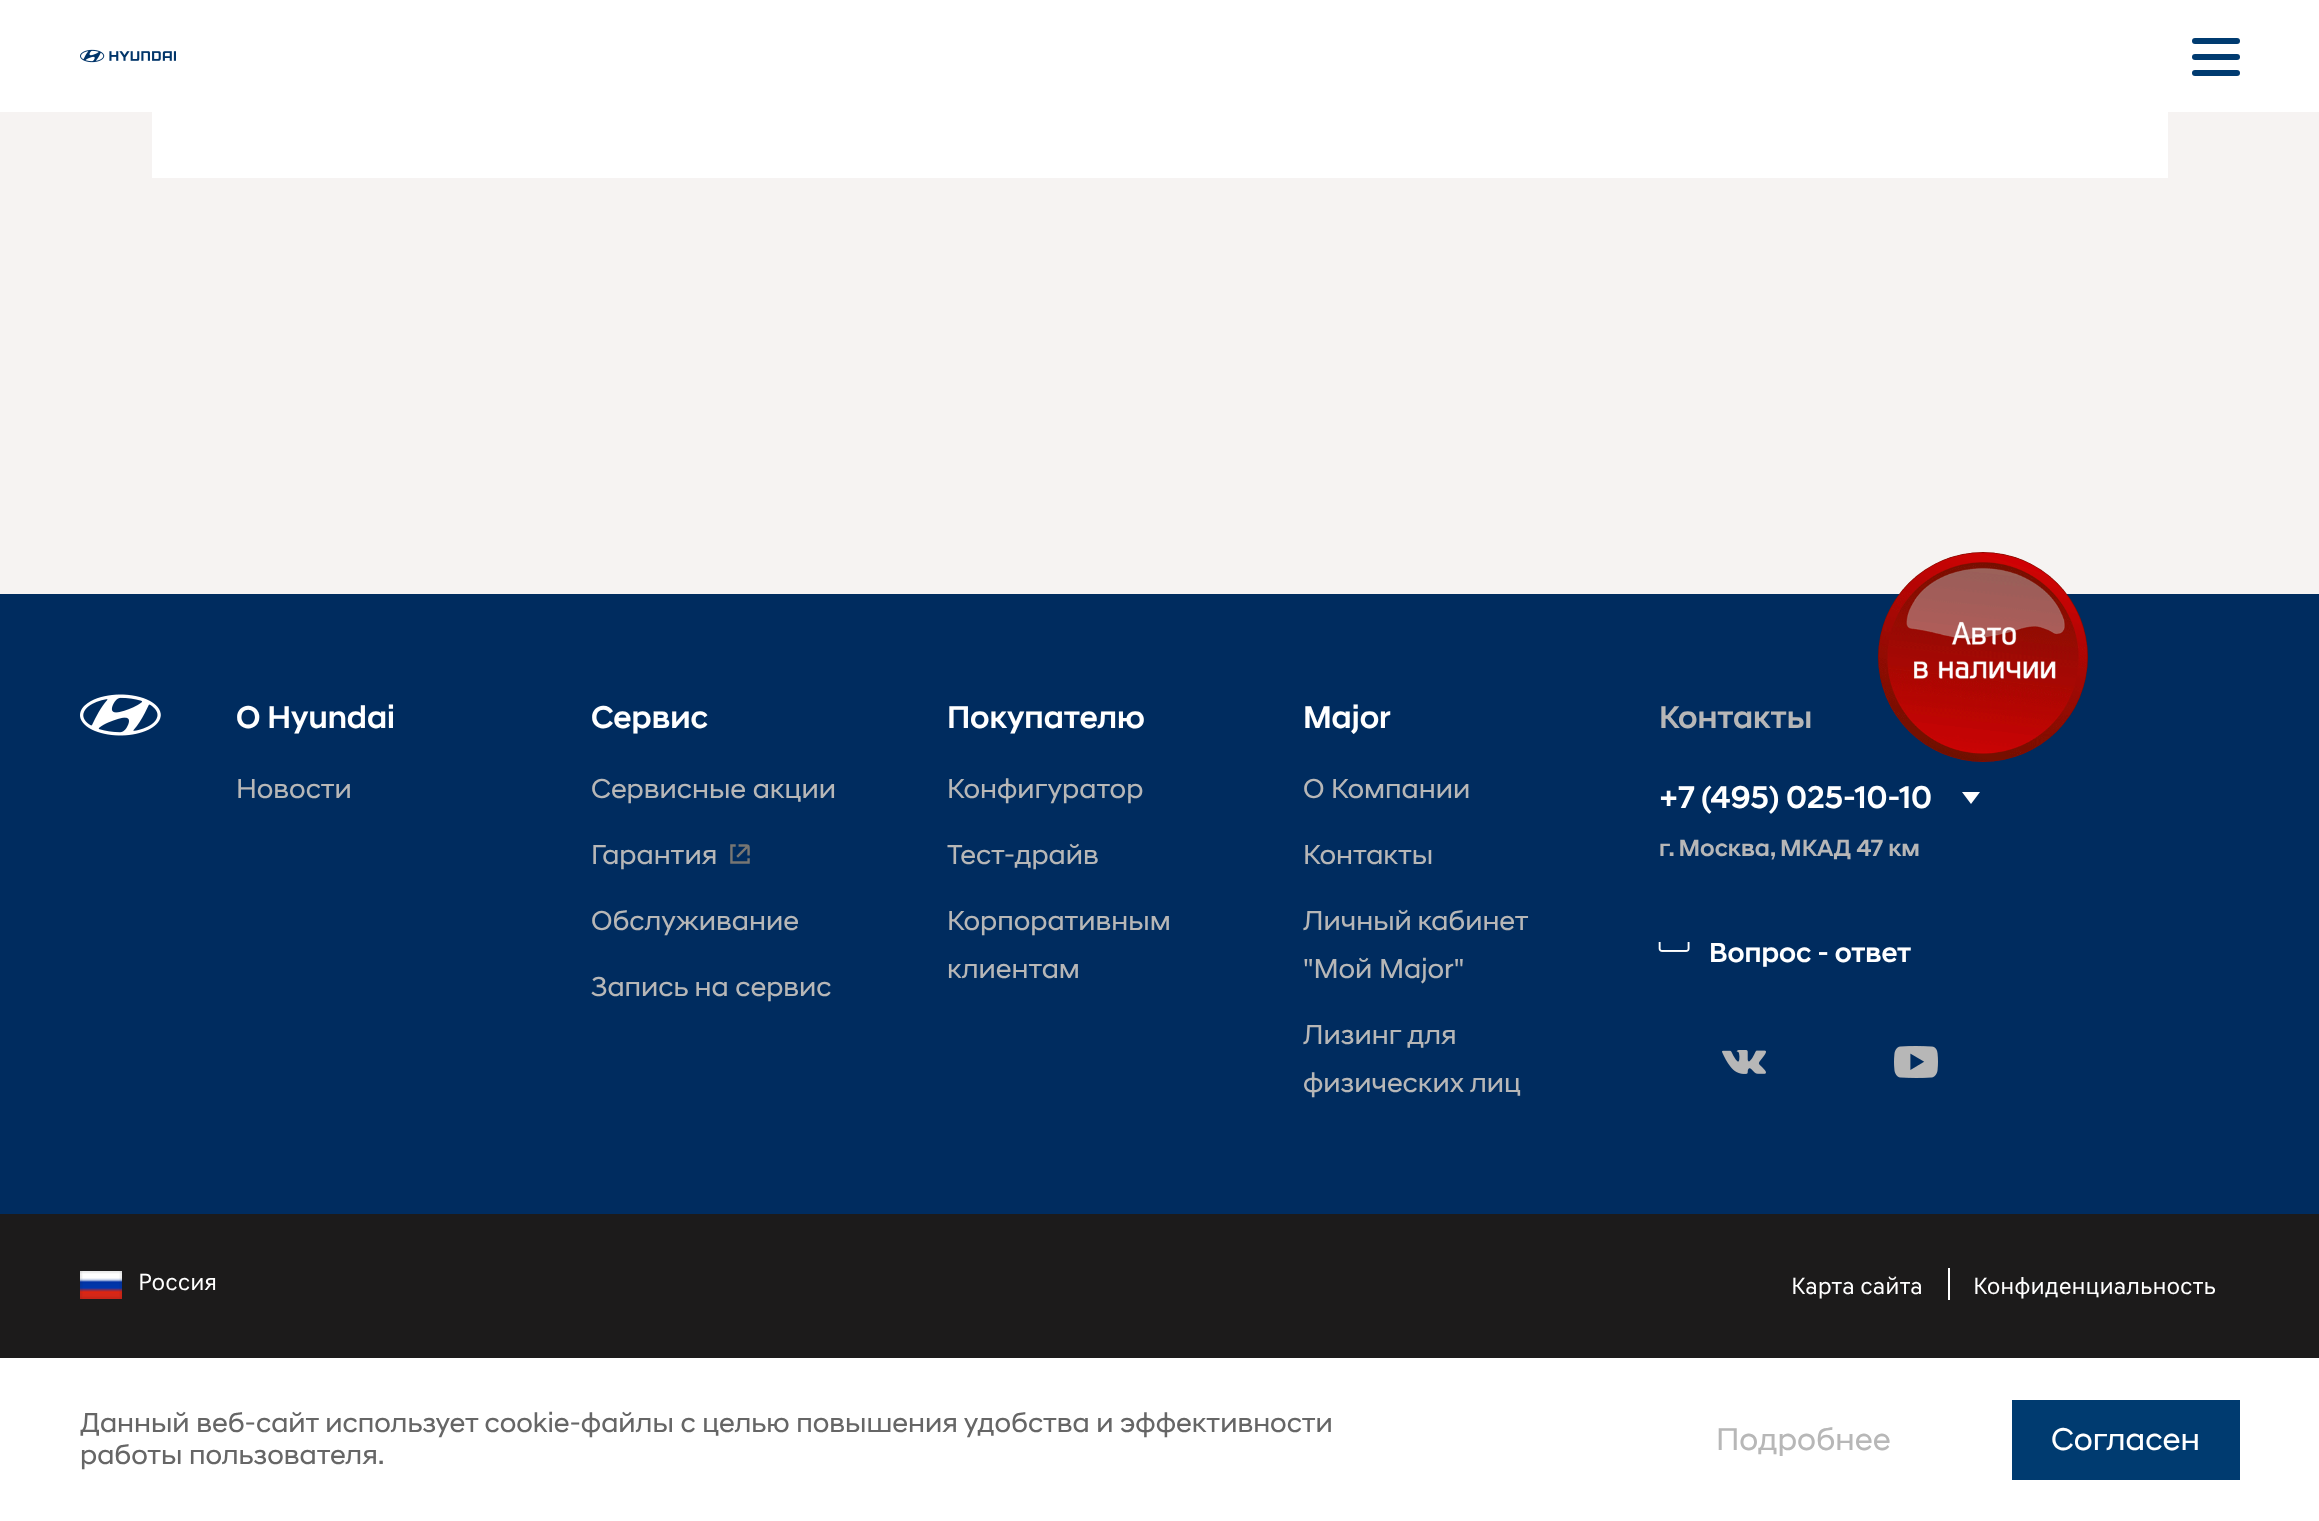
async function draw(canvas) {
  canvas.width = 2319
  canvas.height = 1521
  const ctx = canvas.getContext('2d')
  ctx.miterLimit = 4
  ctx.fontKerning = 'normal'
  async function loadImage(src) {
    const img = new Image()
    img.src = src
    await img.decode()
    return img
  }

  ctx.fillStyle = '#f6f3f2'
  ctx.fillRect(0, 0, 2319, 1521)
  ctx.fillStyle = '#fff'
  ctx.fillRect(0, 0, 2319, 112)
  ctx.drawImage(await loadImage('image0.png'), 80, 49, 96, 14)
  ctx.fillStyle = '#003b70'
  ctx.beginPath()
  ctx.roundRect(2192, 70, 48, 6, 3)
  ctx.fill()
  ctx.beginPath()
  ctx.roundRect(2192, 38, 48, 6, 3)
  ctx.fill()
  ctx.beginPath()
  ctx.roundRect(2192, 54, 48, 6, 3)
  ctx.fill()
  ctx.fillStyle = '#fff'
  ctx.fillRect(152, 112, 2016, 66)
  ctx.fillStyle = '#002c5f'
  ctx.fillRect(0, 594, 2319, 620)
  ctx.drawImage(await loadImage('image1.png'), 1878, 552, 210, 210)
  ctx.drawImage(await loadImage('image2.png'), 80, 694, 81, 42)
  ctx.font = '500 32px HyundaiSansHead'
  ctx.fillStyle = '#fff'
  ctx.fillText('О Hyundai', 236, 728)
  ctx.font = '28px HyundaiSansHead'
  ctx.fillStyle = '#b7b7b7'
  ctx.fillText('Новости', 236, 798)
  ctx.font = '500 32px HyundaiSansHead'
  ctx.fillStyle = '#fff'
  ctx.fillText('Сервис', 591, 728)
  ctx.font = '28px HyundaiSansHead'
  ctx.fillStyle = '#b7b7b7'
  ctx.fillText('Сервисные акции', 591, 798)
  ctx.fillText('Гарантия', 591, 864)
  ctx.drawImage(await loadImage('image3.png'), 730, 844, 20, 20)
  ctx.fillText('Обслуживание', 591, 930)
  ctx.fillText('Запись на сервис', 591, 996)
  ctx.font = '500 32px HyundaiSansHead'
  ctx.fillStyle = '#fff'
  ctx.fillText('Покупателю', 947, 728)
  ctx.font = '28px HyundaiSansHead'
  ctx.fillStyle = '#b7b7b7'
  ctx.fillText('Конфигуратор', 947, 798)
  ctx.fillText('Тест-драйв', 947, 864)
  ctx.fillText('Корпоративным', 947, 930)
  ctx.fillText('клиентам', 947, 978)
  ctx.font = '500 32px HyundaiSansHead'
  ctx.fillStyle = '#fff'
  ctx.fillText('Major', 1303, 728)
  ctx.font = '28px HyundaiSansHead'
  ctx.fillStyle = '#b7b7b7'
  ctx.fillText('О Компании', 1303, 798)
  ctx.fillText('Контакты', 1303, 864)
  ctx.wordSpacing = '-1px'
  ctx.fillText('Личный кабинет', 1303, 930)
  ctx.wordSpacing = '0px'
  ctx.fillText('"Мой Major"', 1303, 978)
  ctx.fillText('Лизинг для', 1303, 1044)
  ctx.fillText('физических лиц', 1303, 1092)
  ctx.font = '500 32px HyundaiSansHead'
  ctx.fillText('Контакты', 1659, 728)
  ctx.fillStyle = '#fff'
  ctx.fillText('+7 (495) 025-10-10', 1659, 808)
  ctx.beginPath()
  ctx.moveTo(1971, 804)
  ctx.lineTo(1962, 792)
  ctx.lineTo(1980, 792)
  ctx.closePath()
  ctx.fill()
  ctx.font = '500 24px HyundaiSansHead'
  ctx.fillStyle = '#b7b7b7'
  ctx.fillText('г. Москва, МКАД 47 км', 1659, 856)
  ctx.drawImage(await loadImage('image4.png'), 1658, 942, 32, 10)
  ctx.font = '500 28px HyundaiSansHead'
  ctx.fillStyle = '#fff'
  ctx.fillText('Вопрос - ответ', 1709, 962)
  ctx.drawImage(await loadImage('image5.png'), 1722, 1050, 44, 24)
  ctx.drawImage(await loadImage('image6.png'), 1894, 1046, 44, 32)
  ctx.fillStyle = '#1c1b1b'
  ctx.fillRect(0, 1214, 2319, 144)
  ctx.drawImage(await loadImage('image7.png'), 80, 1271, 42, 28)
  ctx.font = '24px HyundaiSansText'
  ctx.fillStyle = '#fff'
  ctx.fillText('Россия', 138, 1290)
  ctx.fillRect(1948, 1268, 2, 32)
  ctx.fillText('Карта сайта', 1791, 1294)
  ctx.fillText('Конфиденциальность', 1973, 1294)
  ctx.fillRect(0, 1358, 2319, 163)
  ctx.font = '28px HyundaiSansHead'
  ctx.fillStyle = '#666'
  ctx.fillText('Данный веб-сайт использует cookie-файлы с целью повышения удобства и эффективности', 80, 1432)
  ctx.fillText('работы пользователя.', 80, 1464)
  ctx.font = '32px HyundaiSansHead'
  ctx.fillStyle = '#b7b7b7'
  ctx.fillText('Подробнее', 1716, 1450)
  ctx.fillStyle = '#003b70'
  ctx.fillRect(2012, 1400, 228, 80)
  ctx.fillStyle = '#fff'
  ctx.fillText('Согласен', 2051, 1450)
}

draw(document.querySelector('canvas'))
